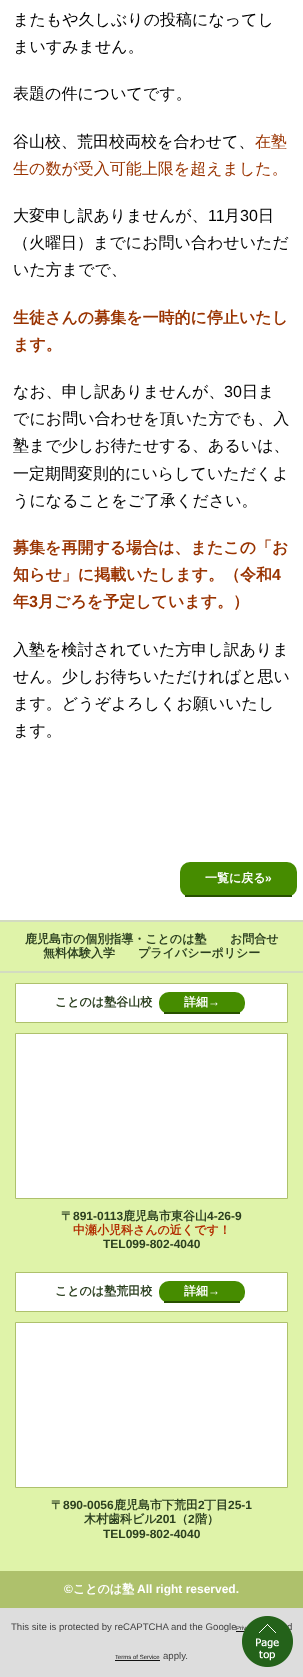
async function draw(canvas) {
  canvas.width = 303
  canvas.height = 1677
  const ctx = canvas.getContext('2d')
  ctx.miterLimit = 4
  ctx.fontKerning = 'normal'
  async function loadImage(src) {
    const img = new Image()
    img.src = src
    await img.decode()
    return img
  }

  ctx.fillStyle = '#fff'
  ctx.fillRect(0, 0, 303, 1677)
  ctx.font = '500 16px WenQuanYi Zen Hei'
  ctx.fillStyle = '#000'
  ctx.fillText('またもや久しぶりの投稿になってし', 13, 25)
  ctx.fillText('まいすみません。', 13, 52)
  ctx.fillText('表題の件についてです。', 13, 99)
  ctx.fillText('谷山校、荒田校両校を合わせて、', 13, 147)
  ctx.fillStyle = '#930'
  ctx.fillText('在塾', 255, 147)
  ctx.fillText('生の数が受入可能上限を超えました。', 13, 174)
  ctx.fillStyle = '#000'
  ctx.fillText('大変申し訳ありませんが、', 13, 221)
  ctx.font = '16px Liberation Sans'
  ctx.fillText('11', 208, 221)
  ctx.font = '500 16px WenQuanYi Zen Hei'
  ctx.fillText('月', 224, 221)
  ctx.font = '16px Liberation Sans'
  ctx.fillText('30', 240, 221)
  ctx.font = '500 16px WenQuanYi Zen Hei'
  ctx.fillText('日', 258, 221)
  ctx.fillText('（火曜日）までにお問い合わせいただ', 13, 248)
  ctx.fillText('いた方までで、', 13, 275)
  ctx.font = 'bold 16px WenQuanYi Zen Hei'
  ctx.fillStyle = '#930'
  ctx.fillText('生徒さんの募集を一時的に停止いたし', 13, 323)
  ctx.fillText('ます。', 13, 350)
  ctx.font = '500 16px WenQuanYi Zen Hei'
  ctx.fillStyle = '#000'
  ctx.fillText('なお、申し訳ありませんが、', 13, 397)
  ctx.font = '16px Liberation Sans'
  ctx.fillText('30', 224, 397)
  ctx.font = '500 16px WenQuanYi Zen Hei'
  ctx.fillText('日ま', 242, 397)
  ctx.fillText('でにお問い合わせを頂いた方でも、入', 13, 424)
  ctx.fillText('塾まで少しお待たせする、あるいは、', 13, 451)
  ctx.fillText('一定期間変則的にいらしていただくよ', 13, 479)
  ctx.fillText('うになることをご了承ください。', 13, 506)
  ctx.font = 'bold 16px WenQuanYi Zen Hei'
  ctx.fillStyle = '#930'
  ctx.fillText('募集を再開する場合は、またこの「お', 13, 553)
  ctx.fillText('知らせ」に掲載いたします。（令和', 13, 580)
  ctx.font = 'bold 16px Liberation Sans'
  ctx.fillText('4', 272, 580)
  ctx.font = 'bold 16px WenQuanYi Zen Hei'
  ctx.fillText('年', 13, 607)
  ctx.font = 'bold 16px Liberation Sans'
  ctx.fillText('3', 29, 607)
  ctx.font = 'bold 16px WenQuanYi Zen Hei'
  ctx.fillText('月ごろを予定しています。）', 38, 607)
  ctx.font = '500 16px WenQuanYi Zen Hei'
  ctx.fillStyle = '#000'
  ctx.fillText('入塾を検討されていた方申し訳ありま', 13, 655)
  ctx.fillText('せん。少しお待ちいただければと思い', 13, 682)
  ctx.fillText('ます。どうぞよろしくお願いいたし', 13, 709)
  ctx.fillText('ます。', 13, 736)
  ctx.fillStyle = '#468c00'
  ctx.beginPath()
  ctx.roundRect(180, 862, 117, 35, 10)
  ctx.fill()
  ctx.fillStyle = '#285100'
  ctx.fillRect(185, 895, 107, 2)
  ctx.font = 'bold 12px WenQuanYi Zen Hei'
  ctx.fillStyle = '#fff'
  ctx.fillText('一覧に戻る', 205, 882)
  ctx.font = 'bold 12px Liberation Sans'
  ctx.fillText('»', 265, 882)
  ctx.fillStyle = '#dff3a9'
  ctx.fillRect(0, 922, 303, 649)
  ctx.fillStyle = '#d3dbc1'
  ctx.fillRect(0, 920, 303, 2)
  ctx.fillRect(0, 971, 303, 2)
  ctx.font = 'bold 12px WenQuanYi Zen Hei'
  ctx.fillStyle = '#2b3f1f'
  ctx.fillText('鹿児島市の個別指導・ことのは塾', 25, 943)
  ctx.fillText('お問合せ', 230, 943)
  ctx.fillText('無料体験入学', 43, 957)
  ctx.fillText('プライバシーポリシー', 138, 957)
  ctx.fillStyle = '#fff'
  ctx.beginPath()
  ctx.rect(15.5, 983.5, 272, 39)
  ctx.fill()
  ctx.strokeStyle = '#aec16c'
  ctx.stroke()
  ctx.fillStyle = '#2b3f1f'
  ctx.fillText('ことのは塾谷山校', 55, 1006)
  ctx.fillStyle = '#468c00'
  ctx.beginPath()
  ctx.roundRect(159, 992, 86, 22, 10)
  ctx.fill()
  ctx.fillStyle = '#285100'
  ctx.fillRect(164, 1012, 76, 2)
  ctx.fillStyle = '#fff'
  ctx.fillText('詳細', 184, 1006)
  ctx.font = 'bold 12px Liberation Sans'
  ctx.fillText('→', 208, 1006)
  ctx.beginPath()
  ctx.rect(15.5, 1033.5, 272, 165)
  ctx.fill()
  ctx.stroke()
  ctx.font = 'bold 12px WenQuanYi Zen Hei'
  ctx.fillStyle = '#2b3f1f'
  ctx.fillText('〒', 61, 1220)
  ctx.font = 'bold 12px Liberation Sans'
  ctx.fillText('891-0113', 73, 1220)
  ctx.font = 'bold 12px WenQuanYi Zen Hei'
  ctx.fillText('鹿児島市東谷山', 123, 1220)
  ctx.font = 'bold 12px Liberation Sans'
  ctx.fillText('4-26-9', 207, 1220)
  ctx.font = 'bold 12px WenQuanYi Zen Hei'
  ctx.fillStyle = '#b22c00'
  ctx.fillText('中瀬小児科さんの近くです！', 73, 1234)
  ctx.font = 'bold 12px Liberation Sans'
  ctx.fillStyle = '#2b3f1f'
  ctx.fillText('TEL099-802-4040', 103, 1248)
  ctx.fillStyle = '#fff'
  ctx.beginPath()
  ctx.rect(15.5, 1272.5, 272, 39)
  ctx.fill()
  ctx.stroke()
  ctx.font = 'bold 12px WenQuanYi Zen Hei'
  ctx.fillStyle = '#2b3f1f'
  ctx.fillText('ことのは塾荒田校', 55, 1295)
  ctx.fillStyle = '#468c00'
  ctx.beginPath()
  ctx.roundRect(159, 1281, 86, 22, 10)
  ctx.fill()
  ctx.fillStyle = '#285100'
  ctx.fillRect(164, 1301, 76, 2)
  ctx.fillStyle = '#fff'
  ctx.fillText('詳細', 184, 1295)
  ctx.font = 'bold 12px Liberation Sans'
  ctx.fillText('→', 208, 1295)
  ctx.beginPath()
  ctx.rect(15.5, 1322.5, 272, 165)
  ctx.fill()
  ctx.stroke()
  ctx.font = 'bold 12px WenQuanYi Zen Hei'
  ctx.fillStyle = '#2b3f1f'
  ctx.fillText('〒', 51, 1509)
  ctx.font = 'bold 12px Liberation Sans'
  ctx.fillText('890-0056', 63, 1509)
  ctx.font = 'bold 12px WenQuanYi Zen Hei'
  ctx.fillText('鹿児島市下荒田', 114, 1509)
  ctx.font = 'bold 12px Liberation Sans'
  ctx.fillText('2', 198, 1509)
  ctx.font = 'bold 12px WenQuanYi Zen Hei'
  ctx.fillText('丁目', 204, 1509)
  ctx.font = 'bold 12px Liberation Sans'
  ctx.fillText('25-1', 228, 1509)
  ctx.font = 'bold 12px WenQuanYi Zen Hei'
  ctx.fillText('木村歯科ビル', 84, 1523)
  ctx.font = 'bold 12px Liberation Sans'
  ctx.fillText('201', 156, 1523)
  ctx.font = 'bold 12px WenQuanYi Zen Hei'
  ctx.fillText('（', 176, 1523)
  ctx.font = 'bold 12px Liberation Sans'
  ctx.fillText('2', 188, 1523)
  ctx.font = 'bold 12px WenQuanYi Zen Hei'
  ctx.fillText('階）', 195, 1523)
  ctx.font = 'bold 12px Liberation Sans'
  ctx.fillText('TEL099-802-4040', 103, 1538)
  ctx.fillStyle = '#aec16c'
  ctx.fillRect(0, 1571, 303, 37)
  ctx.fillStyle = '#fff'
  ctx.fillText('©', 64, 1593)
  ctx.font = 'bold 12px WenQuanYi Zen Hei'
  ctx.fillText('ことのは塾', 73, 1593)
  ctx.font = 'bold 12px Liberation Sans'
  ctx.fillText('All right reserved.', 137, 1593)
  ctx.fillStyle = '#ddd'
  ctx.fillRect(0, 1608, 303, 69)
  ctx.font = '6px Liberation Sans'
  ctx.fillStyle = '#111'
  ctx.fillText('Priv', 236, 1630)
  ctx.fillRect(236, 1631, 9, 1)
  ctx.font = '9.6px Liberation Sans'
  ctx.fillStyle = '#444'
  ctx.fillText('d', 287, 1630)
  ctx.drawImage(await loadImage('image0.png'), 242, 1616, 51, 51)
  ctx.fillText('This site is protected by reCAPTCHA and the Google', 11, 1630)
  ctx.font = '6px Liberation Sans'
  ctx.fillStyle = '#111'
  ctx.fillText('Terms of Service', 115, 1659)
  ctx.fillRect(115, 1660, 45, 1)
  ctx.font = '9.6px Liberation Sans'
  ctx.fillStyle = '#444'
  ctx.fillText('apply.', 163, 1659)
}

draw(document.querySelector('canvas'))
